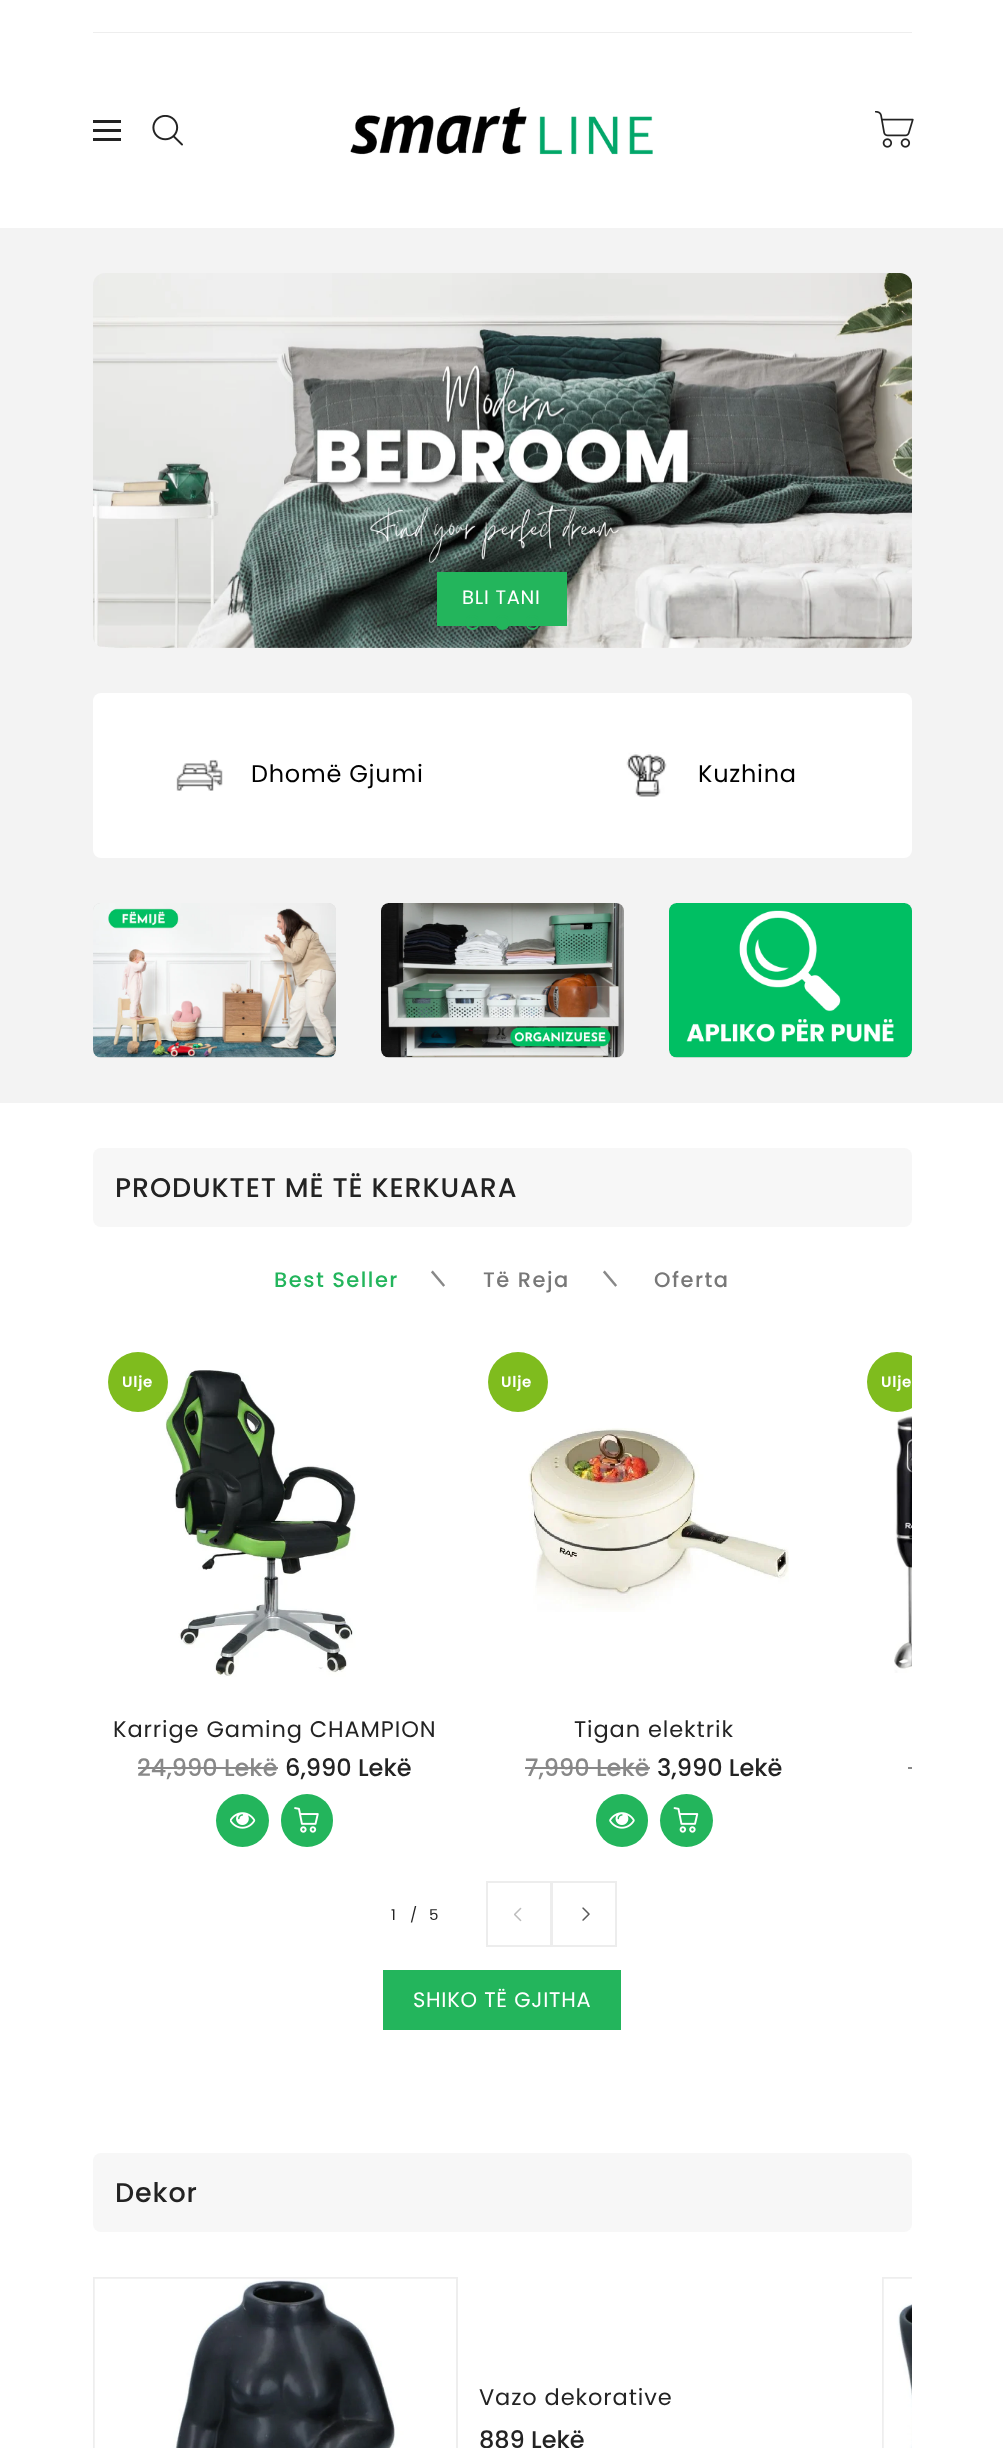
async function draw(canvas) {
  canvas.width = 1003
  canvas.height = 2448
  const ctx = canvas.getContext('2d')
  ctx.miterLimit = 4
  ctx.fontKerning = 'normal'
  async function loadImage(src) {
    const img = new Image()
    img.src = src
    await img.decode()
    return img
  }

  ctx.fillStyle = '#fff'
  ctx.fillRect(0, 0, 1003, 2448)
  ctx.fillStyle = '#eee'
  ctx.fillRect(93, 32, 819, 1)
  ctx.fillStyle = '#232323'
  ctx.fillRect(93, 120, 28, 3)
  ctx.fillRect(93, 129, 28, 3)
  ctx.fillRect(93, 138, 28, 3)
  ctx.drawImage(await loadImage('image0.png'), 152, 115, 31, 31)
  ctx.drawImage(await loadImage('image1.png'), 350, 107, 303, 48)
  ctx.drawImage(await loadImage('image2.png'), 875, 111, 39, 37)
  ctx.fillStyle = '#f3f3f3'
  ctx.fillRect(0, 228, 1003, 875)
  ctx.drawImage(await loadImage('image3.png'), 93, 273, 819, 375)
  ctx.fillStyle = '#23b55c'
  ctx.fillRect(437, 572, 130, 54)
  ctx.letterSpacing = '0.75px'
  ctx.font = '19.5px Poppins'
  ctx.fillStyle = '#fff'
  ctx.fillText('BLI TANI', 462, 604)
  ctx.beginPath()
  ctx.arc(472.5, 622.5, 6.5, 0, 2 * Math.PI)
  ctx.strokeStyle = '#23b55c'
  ctx.lineWidth = 2
  ctx.stroke()
  ctx.fillStyle = '#23b55c'
  ctx.beginPath()
  ctx.arc(502.5, 622.5, 6.5, 0, 2 * Math.PI)
  ctx.fill()
  ctx.stroke()
  ctx.beginPath()
  ctx.arc(532.5, 622.5, 6.5, 0, 2 * Math.PI)
  ctx.stroke()
  ctx.fillStyle = '#fff'
  ctx.beginPath()
  ctx.roundRect(93, 693, 819, 165, 8)
  ctx.fill()
  ctx.drawImage(await loadImage('image4.png'), 176, 759, 47, 32)
  ctx.font = '24px Poppins'
  ctx.fillStyle = '#000'
  ctx.fillText('Dhomë Gjumi', 251, 782)
  ctx.drawImage(await loadImage('image5.png'), 626, 752, 41, 45)
  ctx.fillText('Kuzhina', 698, 782)
  ctx.fillStyle = '#dedede'
  ctx.beginPath()
  ctx.roundRect(93, 903, 243, 155, 8)
  ctx.fill()
  ctx.drawImage(await loadImage('image6.png'), 93, 903, 243, 155)
  ctx.beginPath()
  ctx.roundRect(381, 903, 243, 155, 8)
  ctx.fill()
  ctx.drawImage(await loadImage('image7.png'), 381, 903, 243, 155)
  ctx.beginPath()
  ctx.roundRect(669, 903, 243, 155, 8)
  ctx.fill()
  ctx.drawImage(await loadImage('image8.png'), 669, 903, 243, 155)
  ctx.fillStyle = '#f7f7f7'
  ctx.beginPath()
  ctx.roundRect(93, 1148, 819, 79, 8)
  ctx.fill()
  ctx.letterSpacing = '0.9px'
  ctx.font = '500 27px Poppins'
  ctx.fillStyle = '#232323'
  ctx.fillText('PRODUKTET MË TË KERKUARA', 115, 1197)
  ctx.letterSpacing = '1.5px'
  ctx.font = '500 21px Poppins'
  ctx.fillStyle = '#23b55c'
  ctx.fillText('Best Seller', 274, 1287)
  ctx.fillStyle = '#888'
  ctx.save()
  ctx.translate(436, 1271)
  ctx.rotate(140 * Math.PI / 180)
  ctx.fillText('|', 0, 0)
  ctx.restore()
  ctx.fillStyle = '#787878'
  ctx.fillText('Të Reja', 483, 1287)
  ctx.fillStyle = '#888'
  ctx.save()
  ctx.translate(608, 1271)
  ctx.rotate(140 * Math.PI / 180)
  ctx.fillText('|', 0, 0)
  ctx.restore()
  ctx.fillStyle = '#787878'
  ctx.fillText('Oferta', 654, 1287)
  ctx.drawImage(await loadImage('image9.png'), 165, 1370, 191, 307)
  ctx.fillStyle = '#7fbc1e'
  ctx.beginPath()
  ctx.arc(138, 1382, 30, 0, 2 * Math.PI)
  ctx.fill()
  ctx.letterSpacing = '0.75px'
  ctx.font = '600 15px Poppins'
  ctx.fillStyle = '#fff'
  ctx.fillText('Ulje', 122, 1387)
  ctx.letterSpacing = '0.9px'
  ctx.font = '22.5px Poppins'
  ctx.fillStyle = '#232323'
  ctx.fillText('Karrige Gaming CHAMPION', 113, 1737)
  ctx.letterSpacing = '0px'
  ctx.font = '500 24px Poppins'
  ctx.fillStyle = '#888'
  ctx.fillText('24,990 Lekë', 137, 1776)
  ctx.fillRect(138, 1767, 140, 2)
  ctx.fillStyle = '#232323'
  ctx.fillText('6,990 Lekë', 285, 1776)
  ctx.fillStyle = '#23b55c'
  ctx.beginPath()
  ctx.arc(242.5, 1820.5, 26.5, 0, 2 * Math.PI)
  ctx.fill()
  ctx.drawImage(await loadImage('image10.png'), 230, 1812, 26, 17)
  ctx.beginPath()
  ctx.roundRect(281, 1794, 52, 53, 26)
  ctx.fill()
  ctx.drawImage(await loadImage('image11.png'), 294, 1807, 25, 26)
  ctx.fillStyle = '#7fbc1e'
  ctx.beginPath()
  ctx.arc(518, 1382, 30, 0, 2 * Math.PI)
  ctx.fill()
  ctx.letterSpacing = '0.75px'
  ctx.font = '600 15px Poppins'
  ctx.fillStyle = '#fff'
  ctx.fillText('Ulje', 501, 1387)
  ctx.drawImage(await loadImage('image12.png'), 528, 1428, 261, 184)
  ctx.letterSpacing = '0.9px'
  ctx.font = '22.5px Poppins'
  ctx.fillStyle = '#232323'
  ctx.fillText('Tigan elektrik', 574, 1737)
  ctx.letterSpacing = '0px'
  ctx.font = '500 24px Poppins'
  ctx.fillStyle = '#888'
  ctx.fillText('7,990 Lekë', 525, 1776)
  ctx.fillRect(525, 1767, 125, 2)
  ctx.fillStyle = '#232323'
  ctx.fillText('3,990 Lekë', 657, 1776)
  ctx.fillStyle = '#23b55c'
  ctx.beginPath()
  ctx.roundRect(596, 1794, 52, 53, 26)
  ctx.fill()
  ctx.drawImage(await loadImage('image13.png'), 609, 1812, 26, 17)
  ctx.beginPath()
  ctx.arc(686.5, 1820.5, 26.5, 0, 2 * Math.PI)
  ctx.fill()
  ctx.drawImage(await loadImage('image14.png'), 673, 1807, 26, 26)
  ctx.save()
  ctx.beginPath()
  ctx.rect(93, 1337, 819, 522)
  ctx.clip()
  ctx.fillStyle = '#7fbc1e'
  ctx.beginPath()
  ctx.arc(897, 1382, 30, 0, 2 * Math.PI)
  ctx.fill()
  ctx.restore()
  ctx.letterSpacing = '0.75px'
  ctx.font = '600 15px Poppins'
  ctx.fillStyle = '#fff'
  ctx.fillText('Ulje', 881, 1387)
  ctx.drawImage(await loadImage('image15.png'), 894, 1416, 18, 257)
  ctx.fillStyle = '#888'
  ctx.fillRect(908, 1767, 4, 2)
  ctx.letterSpacing = '1px'
  ctx.font = '15px Poppins'
  ctx.fillStyle = '#232323'
  ctx.fillText('1', 391, 1920)
  ctx.fillText('/', 410, 1920)
  ctx.fillText('5', 429, 1920)
  ctx.strokeStyle = '#ededed'
  ctx.strokeRect(487, 1882, 64, 64)
  ctx.drawImage(await loadImage('image16.png'), 514, 1907, 8, 15)
  ctx.strokeRect(552, 1882, 64, 64)
  ctx.drawImage(await loadImage('image17.png'), 582, 1907, 8, 14)
  ctx.fillStyle = '#23b55c'
  ctx.fillRect(383, 1970, 238, 60)
  ctx.letterSpacing = '0.75px'
  ctx.font = '21px Poppins'
  ctx.fillStyle = '#fff'
  ctx.fillText('SHIKO TË GJITHA', 413, 2007)
  ctx.fillStyle = '#f7f7f7'
  ctx.beginPath()
  ctx.roundRect(93, 2153, 819, 79, 8)
  ctx.fill()
  ctx.letterSpacing = '0.9px'
  ctx.font = '500 27px Poppins'
  ctx.fillStyle = '#232323'
  ctx.fillText('Dekor', 115, 2202)
  ctx.strokeStyle = '#eee'
  ctx.strokeRect(94, 2278, 363, 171)
  ctx.drawImage(await loadImage('image18.png'), 94, 2278, 362, 170)
  ctx.font = '22.5px Poppins'
  ctx.fillText('Vazo dekorative', 479, 2405)
  ctx.letterSpacing = '0px'
  ctx.font = '500 24px Poppins'
  ctx.fillText('889 Lekë', 479, 2448)
  ctx.save()
  ctx.beginPath()
  ctx.rect(882, 2277, 30, 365)
  ctx.clip()
  ctx.strokeRect(883, 2278, 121, 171)
  ctx.restore()
  ctx.drawImage(await loadImage('image19.png'), 883, 2278, 29, 170)
}

draw(document.querySelector('canvas'))
